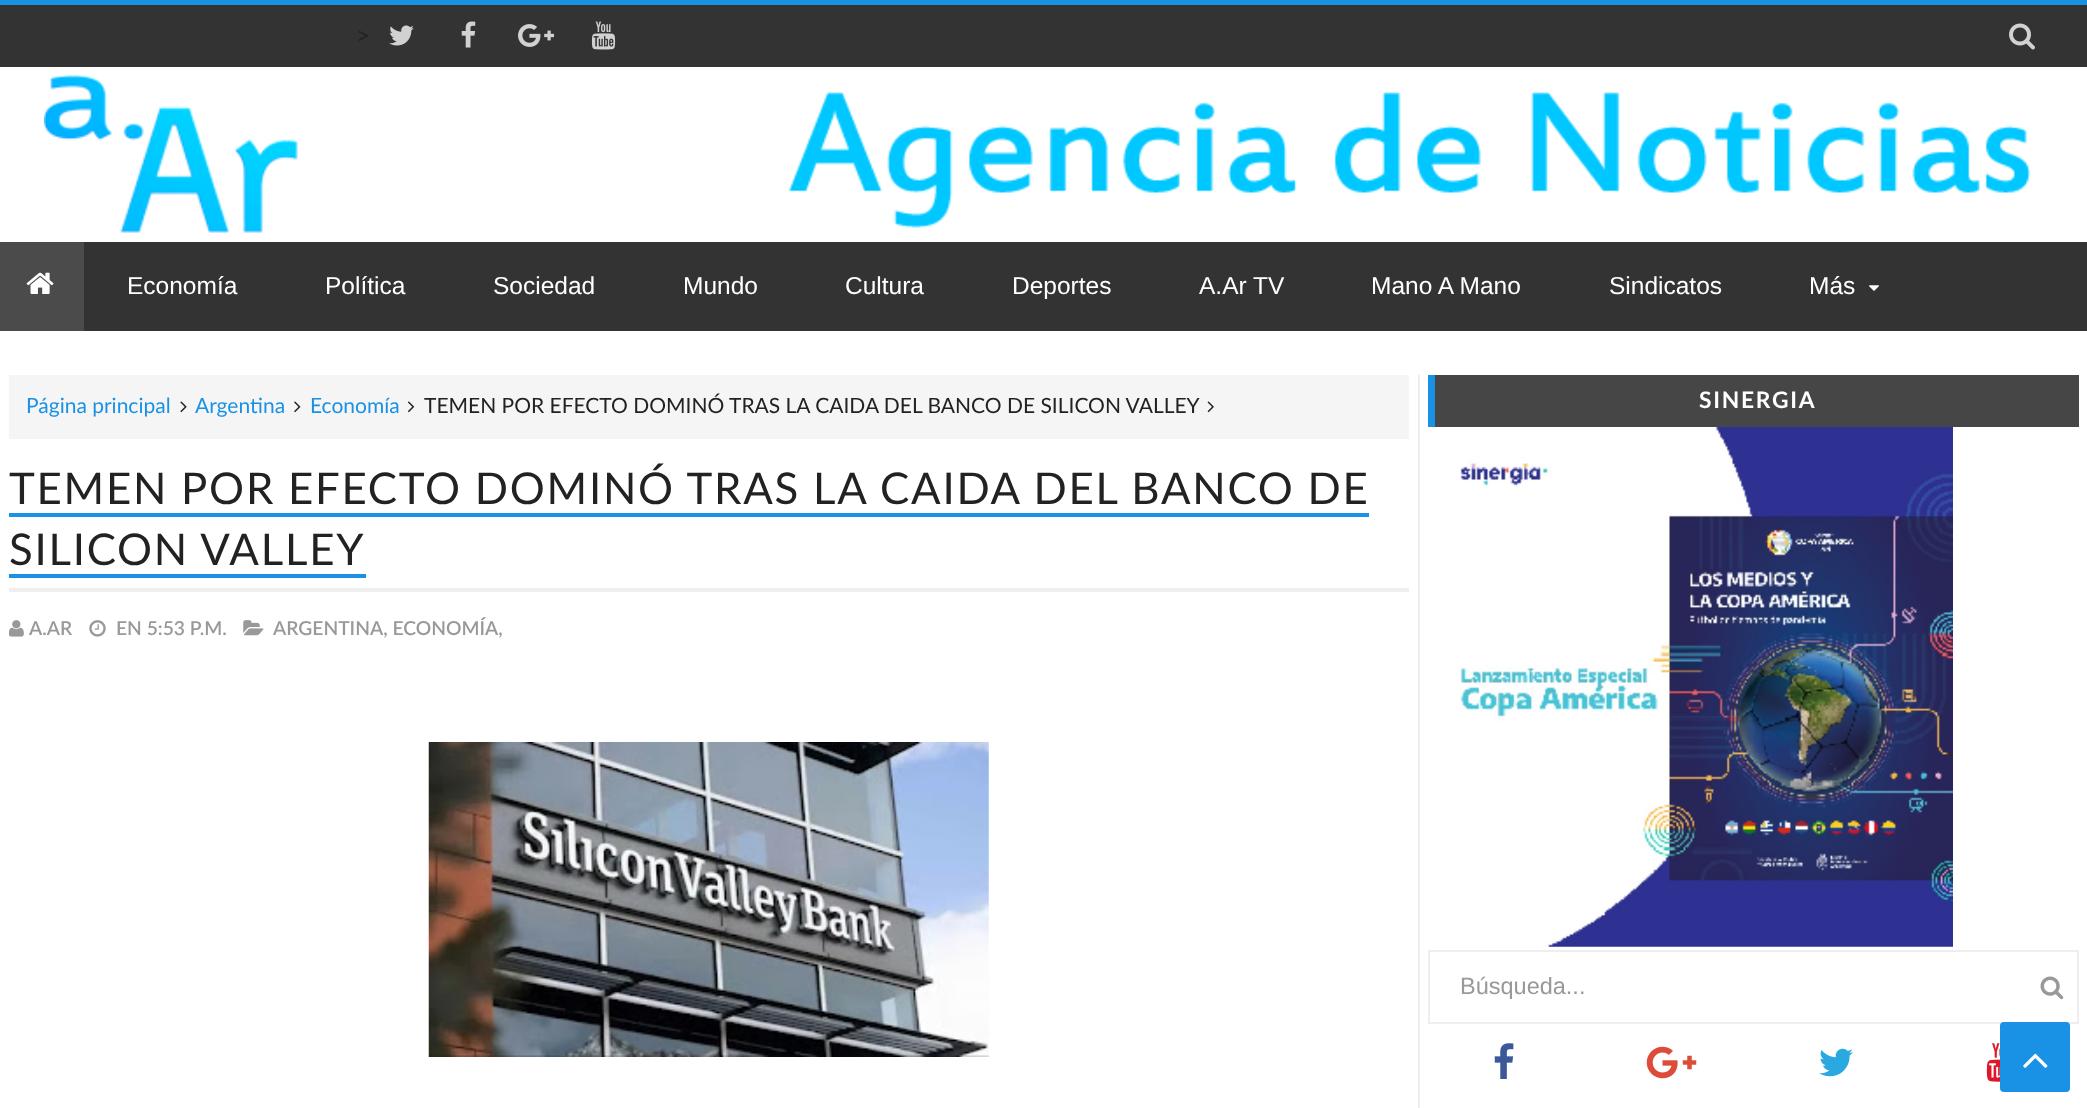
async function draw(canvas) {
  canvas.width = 2087
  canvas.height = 1108
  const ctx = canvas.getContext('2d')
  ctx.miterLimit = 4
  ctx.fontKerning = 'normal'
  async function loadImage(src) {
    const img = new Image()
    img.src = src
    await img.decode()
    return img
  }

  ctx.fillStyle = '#fff'
  ctx.fillRect(0, 0, 2087, 1108)
  ctx.fillStyle = '#333'
  ctx.fillRect(0, 5, 2087, 62)
  ctx.fillStyle = '#1991e5'
  ctx.fillRect(0, 0, 2087, 5)
  ctx.font = '24.5px Lato'
  ctx.fillStyle = '#222'
  ctx.fillText('>', 356, 44)
  ctx.drawImage(await loadImage('image0.png'), 389, 25, 25, 21)
  ctx.drawImage(await loadImage('image1.png'), 461, 21, 15, 27)
  ctx.drawImage(await loadImage('image2.png'), 518, 24, 36, 23)
  ctx.drawImage(await loadImage('image3.png'), 591, 21, 25, 29)
  ctx.drawImage(await loadImage('image4.png'), 2009, 23, 26, 27)
  ctx.drawImage(await loadImage('image5.png'), 43, 75, 255, 158)
  ctx.drawImage(await loadImage('image6.png'), 788, 92, 1243, 136)
  ctx.fillStyle = '#333'
  ctx.fillRect(84, 242, 2003, 89)
  ctx.fillStyle = '#4b4b4b'
  ctx.fillRect(0, 242, 84, 89)
  ctx.drawImage(await loadImage('image7.png'), 26, 272, 28, 22)
  ctx.font = '24.5px Liberation Sans'
  ctx.fillStyle = '#fff'
  ctx.fillText('Economía', 127, 294)
  ctx.fillText('Política', 325, 294)
  ctx.fillText('Sociedad', 493, 294)
  ctx.fillText('Mundo', 683, 294)
  ctx.fillText('Cultura', 845, 294)
  ctx.fillText('Deportes', 1012, 294)
  ctx.fillText('A.Ar TV', 1199, 294)
  ctx.fillText('Mano A Mano', 1371, 294)
  ctx.fillText('Sindicatos', 1609, 294)
  ctx.fillText('Más', 1809, 294)
  ctx.drawImage(await loadImage('image8.png'), 1869, 285, 10, 6)
  ctx.fillStyle = '#eee'
  ctx.fillRect(1418, 375, 2, 733)
  ctx.fillStyle = '#f5f5f5'
  ctx.fillRect(9, 375, 1400, 64)
  ctx.font = '21px Lato'
  ctx.fillStyle = '#1991e5'
  ctx.fillText('Página principal', 26, 413)
  ctx.drawImage(await loadImage('image9.png'), 180, 401, 7, 12)
  ctx.fillText('Argentina', 195, 413)
  ctx.drawImage(await loadImage('image10.png'), 294, 401, 7, 12)
  ctx.fillText('Economía', 310, 413)
  ctx.drawImage(await loadImage('image11.png'), 407, 401, 8, 12)
  ctx.fillStyle = '#222'
  ctx.fillText('TEMEN POR EFECTO DOMINÓ TRAS LA CAIDA DEL BANCO DE SILICON VALLEY', 424, 413)
  ctx.drawImage(await loadImage('image12.png'), 1207, 401, 7, 12)
  ctx.fillStyle = '#eee'
  ctx.fillRect(9, 588, 1400, 4)
  ctx.letterSpacing = '1.75px'
  ctx.font = '43.75px Lato'
  ctx.fillStyle = '#222'
  ctx.fillText('TEMEN POR EFECTO DOMINÓ TRAS LA CAIDA DEL BANCO DE', 9, 504)
  ctx.fillStyle = '#1991e5'
  ctx.fillRect(9, 513, 1360, 4)
  ctx.fillStyle = '#222'
  ctx.fillText('SILICON VALLEY', 9, 565)
  ctx.fillStyle = '#1991e5'
  ctx.fillRect(9, 574, 357, 4)
  ctx.drawImage(await loadImage('image13.png'), 9, 620, 15, 17)
  ctx.letterSpacing = '0px'
  ctx.font = '600 19.25px Lato'
  ctx.fillStyle = '#999'
  ctx.fillText('A.AR', 29, 635)
  ctx.drawImage(await loadImage('image14.png'), 89, 620, 17, 17)
  ctx.fillText('EN 5:53 P.M.', 116, 635)
  ctx.drawImage(await loadImage('image15.png'), 243, 620, 21, 16)
  ctx.fillText('ARGENTINA, ECONOMÍA,', 273, 635)
  ctx.drawImage(await loadImage('image16.png'), 428, 742, 561, 315)
  ctx.fillStyle = '#464646'
  ctx.fillRect(1435, 375, 644, 52)
  ctx.fillStyle = '#1991e5'
  ctx.fillRect(1428, 375, 7, 52)
  ctx.letterSpacing = '1.75px'
  ctx.font = 'bold 22.75px Lato'
  ctx.fillStyle = '#fff'
  ctx.fillText('SINERGIA', 1699, 408)
  ctx.drawImage(await loadImage('image17.png'), 1460, 427, 493, 520)
  ctx.strokeStyle = '#eee'
  ctx.lineWidth = 2
  ctx.strokeRect(1429, 951, 649, 72)
  ctx.letterSpacing = '0px'
  ctx.font = '23.5px Liberation Sans'
  ctx.fillStyle = '#999'
  ctx.fillText('Búsqueda...', 1460, 994)
  ctx.drawImage(await loadImage('image18.png'), 2040, 976, 24, 24)
  ctx.drawImage(await loadImage('image19.png'), 1494, 1043, 20, 36)
  ctx.drawImage(await loadImage('image20.png'), 1646, 1046, 51, 33)
  ctx.drawImage(await loadImage('image21.png'), 1819, 1048, 34, 29)
  ctx.drawImage(await loadImage('image22.png'), 1986, 1043, 14, 39)
  ctx.fillStyle = '#1991e5'
  ctx.beginPath()
  ctx.roundRect(2000, 1022, 70, 70, 4)
  ctx.fill()
  ctx.drawImage(await loadImage('image23.png'), 2023, 1053, 25, 15)
}

draw(document.querySelector('canvas'))
